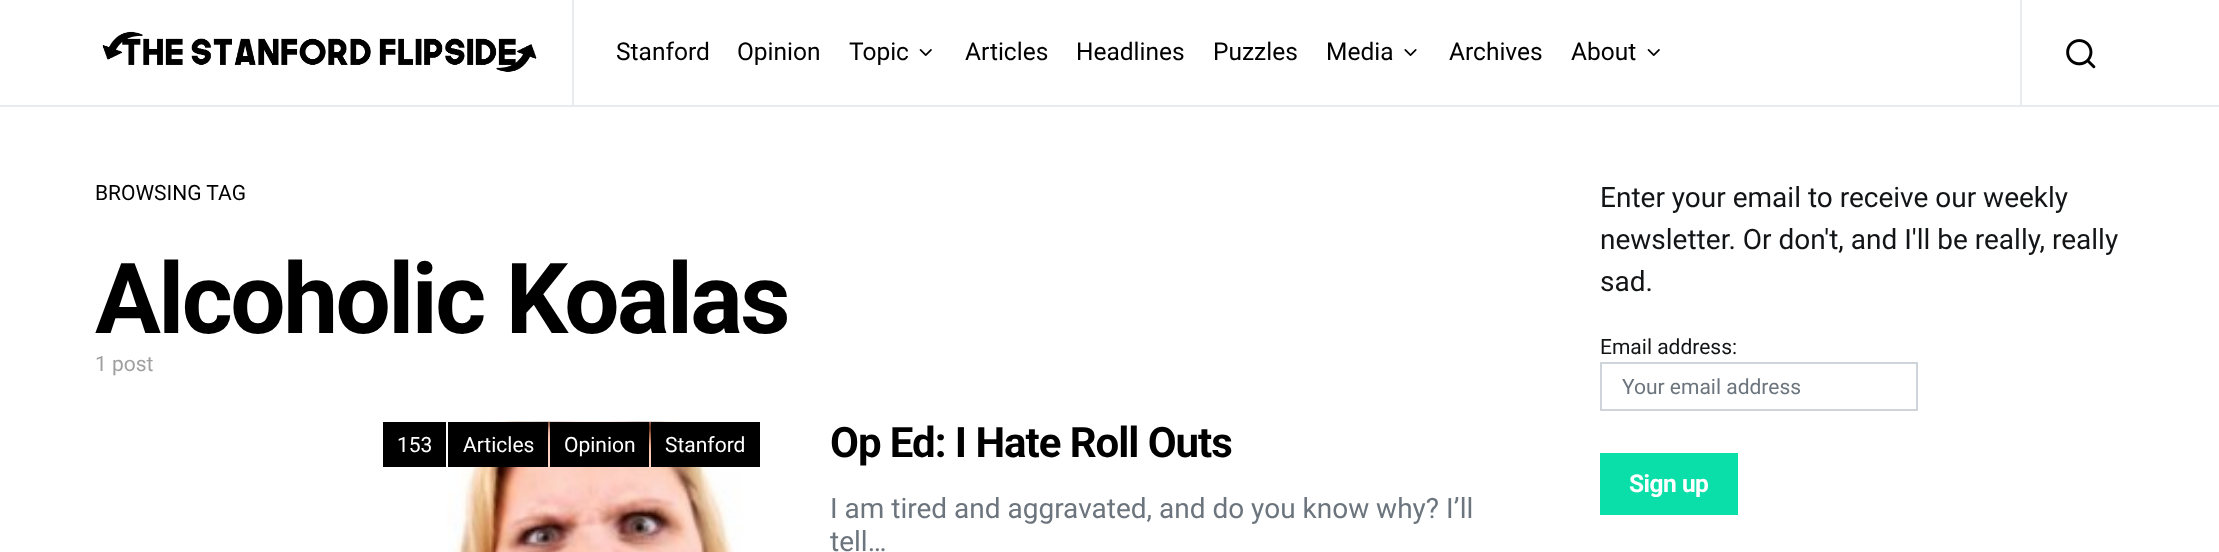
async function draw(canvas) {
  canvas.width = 2219
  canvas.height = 552
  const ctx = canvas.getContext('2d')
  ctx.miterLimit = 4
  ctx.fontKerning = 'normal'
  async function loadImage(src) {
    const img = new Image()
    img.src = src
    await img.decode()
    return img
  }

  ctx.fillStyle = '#fff'
  ctx.fillRect(0, 0, 2219, 552)
  ctx.fillStyle = '#e9ecef'
  ctx.fillRect(0, 105, 2219, 2)
  ctx.drawImage(await loadImage('image0.png'), 102, 31, 435, 41)
  ctx.fillRect(572, 0, 2, 105)
  ctx.font = '24.5px Roboto'
  ctx.fillStyle = '#000'
  ctx.fillText('Stanford', 616, 60)
  ctx.fillText('Opinion', 737, 60)
  ctx.fillText('Topic', 849, 60)
  ctx.drawImage(await loadImage('image1.png'), 919, 49, 13, 7)
  ctx.fillText('Articles', 965, 60)
  ctx.fillText('Headlines', 1076, 60)
  ctx.fillText('Puzzles', 1213, 60)
  ctx.fillText('Media', 1326, 60)
  ctx.drawImage(await loadImage('image2.png'), 1404, 49, 13, 7)
  ctx.fillText('Archives', 1449, 60)
  ctx.fillText('About', 1571, 60)
  ctx.drawImage(await loadImage('image1.png'), 1647, 49, 13, 7)
  ctx.fillStyle = '#e9ecef'
  ctx.fillRect(2020, 0, 2, 105)
  ctx.drawImage(await loadImage('image3.png'), 2066, 39, 30, 30)
  ctx.font = '21px Roboto'
  ctx.fillStyle = '#000'
  ctx.fillText('BROWSING TAG', 95, 200)
  ctx.letterSpacing = '-2.5px'
  ctx.font = 'bold 98px Roboto'
  ctx.fillText('Alcoholic Koalas', 95, 333)
  ctx.letterSpacing = '0px'
  ctx.font = '21px Roboto'
  ctx.fillStyle = '#a0a0a0'
  ctx.fillText('1 post', 95, 371)
  ctx.drawImage(await loadImage('image4.png'), 447, 421, 296, 131)
  ctx.fillStyle = '#000'
  ctx.fillRect(383, 422, 63, 45)
  ctx.fillStyle = '#fff'
  ctx.fillText('153', 397, 452)
  ctx.fillStyle = '#000'
  ctx.fillRect(448, 422, 100, 45)
  ctx.fillStyle = '#fff'
  ctx.fillText('Articles', 463, 452)
  ctx.fillStyle = '#000'
  ctx.fillRect(550, 422, 99, 45)
  ctx.fillStyle = '#fff'
  ctx.fillText('Opinion', 564, 452)
  ctx.fillStyle = '#000'
  ctx.fillRect(651, 422, 109, 45)
  ctx.fillStyle = '#fff'
  ctx.fillText('Stanford', 665, 452)
  ctx.letterSpacing = '-1.05px'
  ctx.font = 'bold 42px Roboto'
  ctx.fillStyle = '#000'
  ctx.fillText('Op Ed: I Hate Roll Outs', 830, 457)
  ctx.letterSpacing = '0px'
  ctx.font = '28px Roboto'
  ctx.fillStyle = '#6c757d'
  ctx.fillText('I am tired and aggravated, and do you know why? I’ll', 830, 518)
  ctx.fillText('tell…', 830, 551)
  ctx.fillStyle = '#121416'
  ctx.fillText('Enter your email to receive our weekly', 1600, 207)
  ctx.fillText('newsletter. Or don\'t, and I\'ll be really, really', 1600, 249)
  ctx.fillText('sad.', 1600, 291)
  ctx.font = '21px Roboto'
  ctx.fillText('Email address:', 1600, 354)
  ctx.strokeStyle = '#ced4da'
  ctx.lineWidth = 2
  ctx.strokeRect(1601, 363, 316, 47)
  ctx.fillStyle = '#6c757d'
  ctx.fillText('Your email address', 1622, 394)
  ctx.fillStyle = '#0adea9'
  ctx.fillRect(1600, 453, 138, 62)
  ctx.letterSpacing = '-0.5px'
  ctx.font = 'bold 24.5px Roboto'
  ctx.fillStyle = '#fff'
  ctx.fillText('Sign up', 1629, 492)
}

draw(document.querySelector('canvas'))
